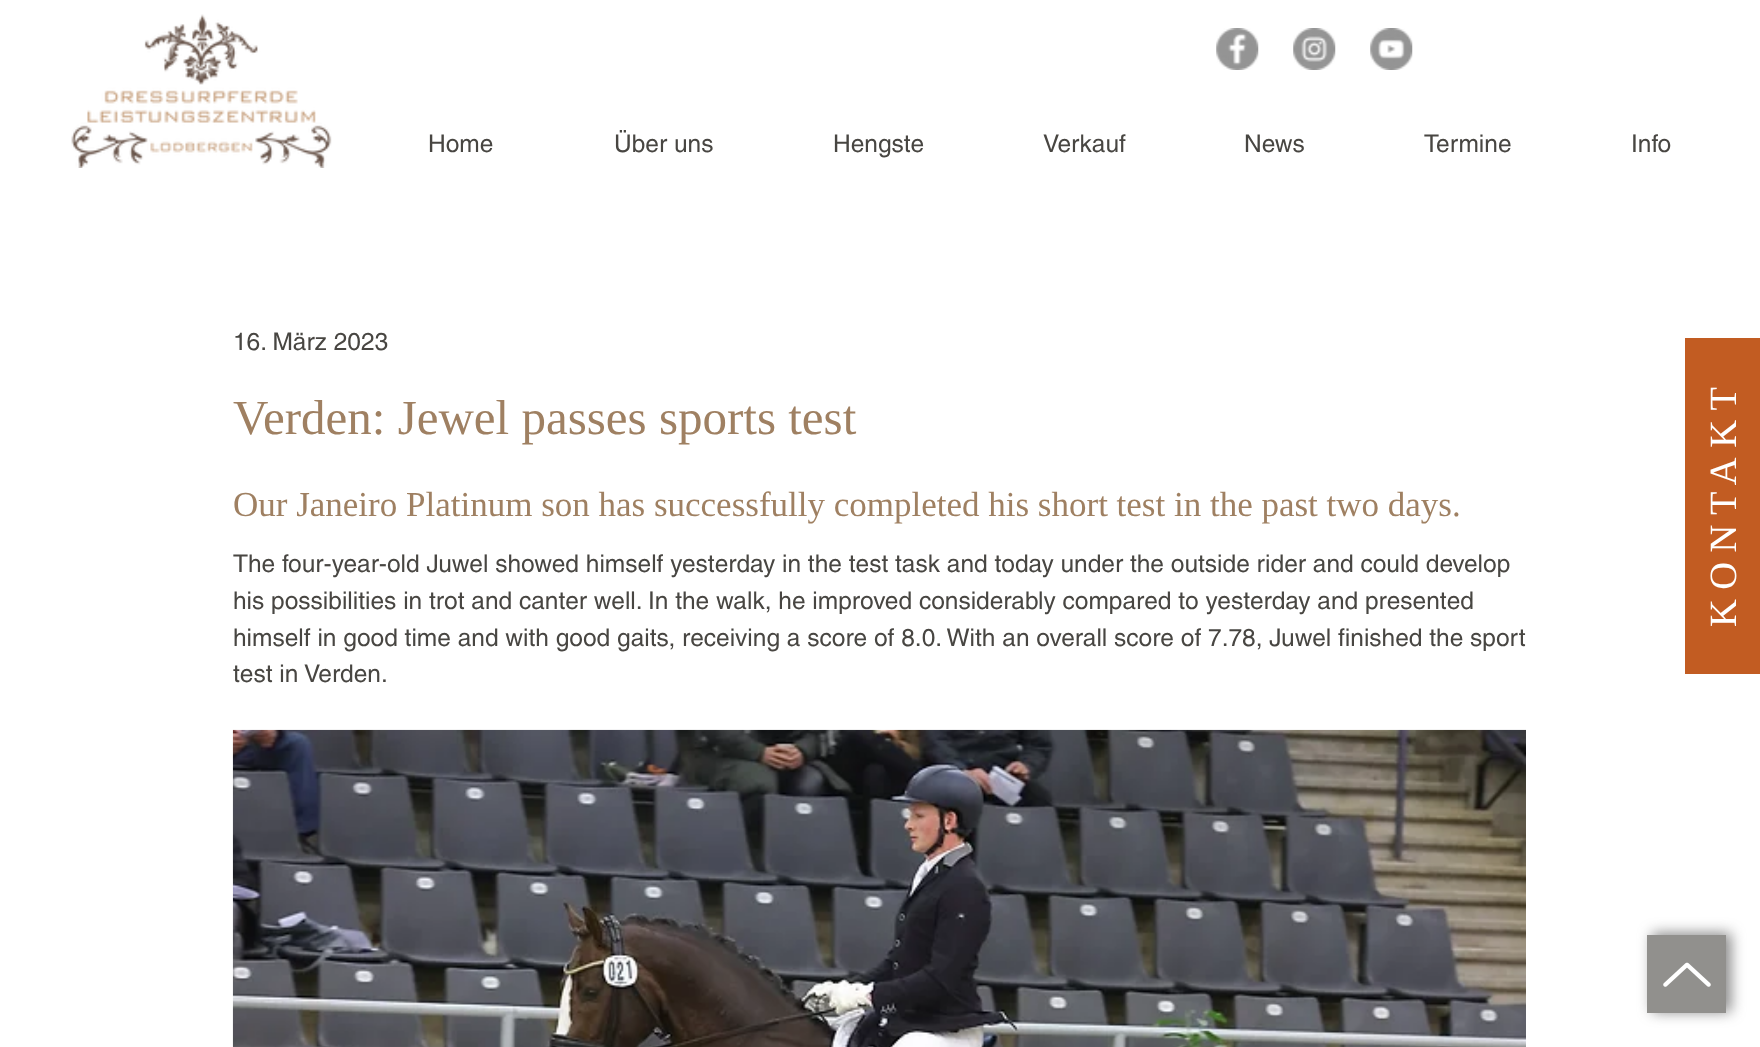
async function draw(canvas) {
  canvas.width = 1760
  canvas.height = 1047
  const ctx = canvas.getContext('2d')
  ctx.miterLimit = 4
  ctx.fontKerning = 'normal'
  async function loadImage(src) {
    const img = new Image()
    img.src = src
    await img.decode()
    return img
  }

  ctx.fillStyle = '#fff'
  ctx.fillRect(0, 0, 1760, 1047)
  ctx.drawImage(await loadImage('image0.png'), 71, 14, 261, 154)
  ctx.drawImage(await loadImage('image1.png'), 1216, 28, 43, 42)
  ctx.drawImage(await loadImage('image2.png'), 1293, 28, 43, 42)
  ctx.drawImage(await loadImage('image3.png'), 1370, 28, 43, 42)
  ctx.font = '24.5px helvetica'
  ctx.fillStyle = '#484642'
  ctx.fillText('Home', 428, 152)
  ctx.fillText('Über uns', 614, 152)
  ctx.fillText('Hengste', 833, 152)
  ctx.fillText('Verkauf', 1043, 152)
  ctx.fillText('News', 1244, 152)
  ctx.fillText('Termine', 1424, 152)
  ctx.fillText('Info', 1631, 152)
  ctx.fillText('16. März 2023', 233, 350)
  ctx.font = '49px Liberation Serif'
  ctx.fillStyle = '#9f8062'
  ctx.fillText('Verden: Jewel passes sports test', 233, 434)
  ctx.font = '35px Liberation Serif'
  ctx.fillText('Our Janeiro Platinum son has successfully completed his short test in the past two days.', 233, 516)
  ctx.font = '24.5px helvetica'
  ctx.fillStyle = '#484642'
  ctx.fillText('The four-year-old Juwel showed himself yesterday in the test task and today under the outside rider and could develop', 233, 572)
  ctx.fillText('his possibilities in trot and canter well. In the walk, he improved considerably compared to yesterday and presented', 233, 609)
  ctx.fillText('himself in good time and with good gaits, receiving a score of 8.0. With an overall score of 7.78, Juwel finished the sport', 233, 646)
  ctx.fillText('test in Verden.', 233, 682)
  ctx.drawImage(await loadImage('image4.png'), 232, 729, 1294, 318)
  ctx.fillStyle = '#c25c22'
  ctx.fillRect(1685, 338, 75, 336)
  ctx.letterSpacing = '9.5px'
  ctx.font = '38.5px Liberation Serif'
  ctx.fillStyle = '#fff'
  ctx.save()
  ctx.translate(1736, 627)
  ctx.rotate(-90 * Math.PI / 180)
  ctx.fillText('KONTAKT', 0, 0)
  ctx.restore()
  ctx.save()
  ctx.beginPath()
  ctx.moveTo(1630, 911)
  ctx.lineTo(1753, 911)
  ctx.lineTo(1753, 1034)
  ctx.lineTo(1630, 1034)
  ctx.closePath()
  ctx.moveTo(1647, 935)
  ctx.lineTo(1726, 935)
  ctx.lineTo(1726, 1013)
  ctx.lineTo(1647, 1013)
  ctx.closePath()
  ctx.clip('evenodd')
  ctx.fillStyle = '#595959b8'
  ctx.filter = 'blur(7px)'
  ctx.beginPath()
  ctx.rect(1652, 933, 79, 79)
  ctx.fill()
  ctx.filter = 'none'
  ctx.restore()
  ctx.fillStyle = '#767471cc'
  ctx.fillRect(1647, 935, 79, 78)
  ctx.drawImage(await loadImage('image5.png'), 1663, 962, 48, 25)
}

draw(document.querySelector('canvas'))
